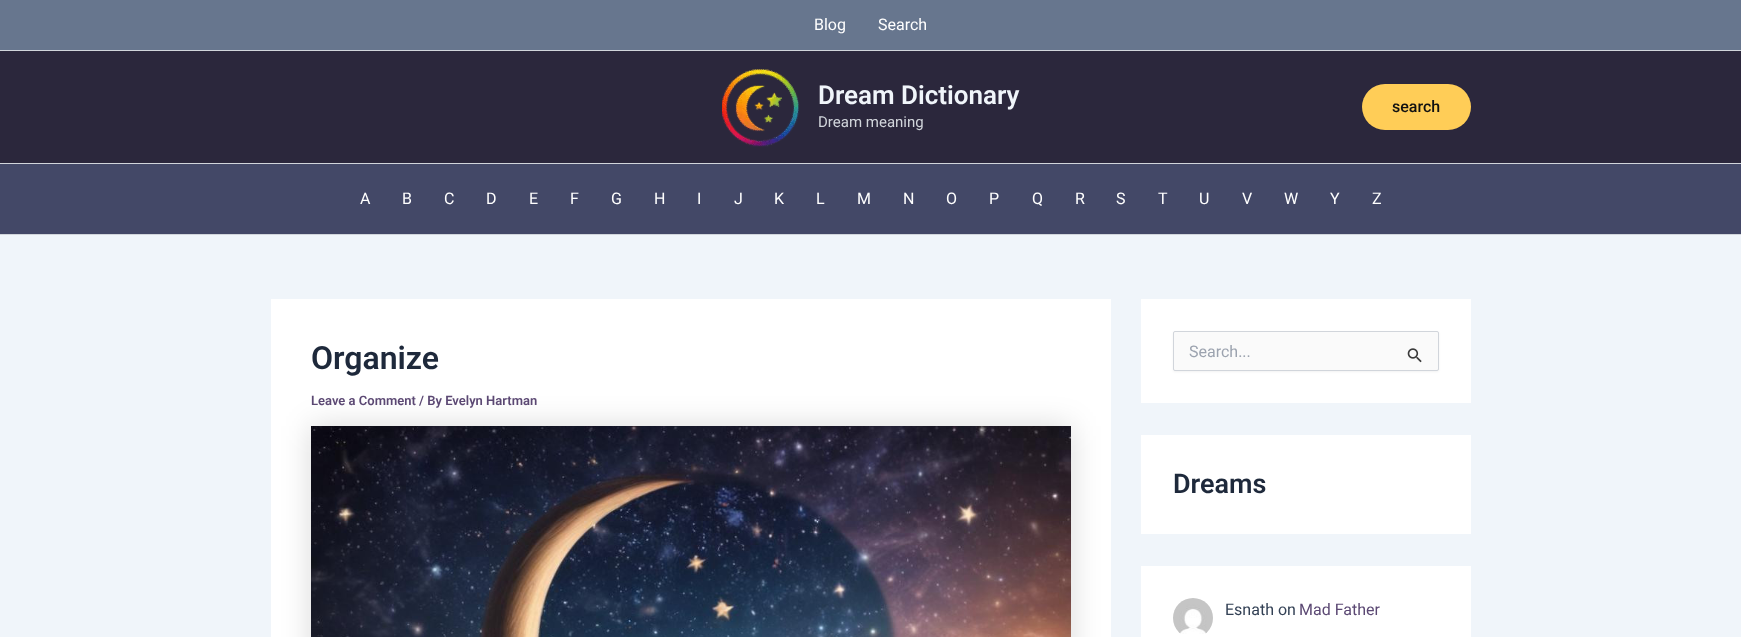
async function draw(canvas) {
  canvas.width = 1741
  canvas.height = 637
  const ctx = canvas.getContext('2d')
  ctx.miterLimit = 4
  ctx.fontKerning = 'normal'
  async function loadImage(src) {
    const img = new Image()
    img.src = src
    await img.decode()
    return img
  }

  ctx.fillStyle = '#f0f5fa'
  ctx.fillRect(0, 0, 1741, 637)
  ctx.fillStyle = '#67768e'
  ctx.fillRect(0, 0, 1741, 50)
  ctx.fillStyle = '#d1d5db'
  ctx.fillRect(0, 50, 1741, 1)
  ctx.font = '16px Roboto'
  ctx.fillStyle = '#fff'
  ctx.fillText('Blog', 814, 30)
  ctx.fillText('Search', 878, 30)
  ctx.fillStyle = '#2b273c'
  ctx.fillRect(0, 51, 1741, 112)
  ctx.fillStyle = '#d1d5db'
  ctx.fillRect(0, 163, 1741, 1)
  ctx.drawImage(await loadImage('image0.png'), 722, 69, 78, 78)
  ctx.font = '600 26px Roboto'
  ctx.fillStyle = '#f0f5fa'
  ctx.fillText('Dream Dictionary', 818, 104)
  ctx.font = '15px Roboto'
  ctx.fillStyle = '#d1d5db'
  ctx.fillText('Dream meaning', 818, 127)
  ctx.fillStyle = '#ffcd57'
  ctx.beginPath()
  ctx.roundRect(1362, 84, 109, 46, 23)
  ctx.fill()
  ctx.font = '500 16px Roboto'
  ctx.fillStyle = '#111'
  ctx.fillText('search', 1392, 112)
  ctx.fillStyle = '#434867'
  ctx.fillRect(0, 164, 1741, 70)
  ctx.fillStyle = '#d1d5db'
  ctx.fillRect(0, 234, 1741, 1)
  ctx.font = '16px Roboto'
  ctx.fillStyle = '#fff'
  ctx.fillText('A', 360, 204)
  ctx.fillText('B', 402, 204)
  ctx.fillText('C', 444, 204)
  ctx.fillText('D', 486, 204)
  ctx.fillText('E', 529, 204)
  ctx.fillText('F', 570, 204)
  ctx.fillText('G', 611, 204)
  ctx.fillText('H', 654, 204)
  ctx.fillText('I', 697, 204)
  ctx.fillText('J', 734, 204)
  ctx.fillText('K', 774, 204)
  ctx.fillText('L', 816, 204)
  ctx.fillText('M', 857, 204)
  ctx.fillText('N', 903, 204)
  ctx.fillText('O', 946, 204)
  ctx.fillText('P', 989, 204)
  ctx.fillText('Q', 1032, 204)
  ctx.fillText('R', 1075, 204)
  ctx.fillText('S', 1116, 204)
  ctx.fillText('T', 1158, 204)
  ctx.fillText('U', 1199, 204)
  ctx.fillText('V', 1242, 204)
  ctx.fillText('W', 1284, 204)
  ctx.fillText('Y', 1330, 204)
  ctx.fillText('Z', 1372, 204)
  ctx.fillRect(271, 299, 840, 338)
  ctx.font = '600 32px Roboto'
  ctx.fillStyle = '#1e293b'
  ctx.fillText('Organize', 311, 369)
  ctx.fillStyle = '#00000026'
  ctx.filter = 'blur(15px)'
  ctx.beginPath()
  ctx.rect(311, 426, 760, 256)
  ctx.fill()
  ctx.filter = 'none'
  ctx.drawImage(await loadImage('image1.png'), 311, 426, 760, 211)
  ctx.font = '600 13px Roboto'
  ctx.fillStyle = '#5b4873'
  ctx.fillText('Leave a Comment / By Evelyn Hartman', 311, 405)
  ctx.fillStyle = '#fff'
  ctx.fillRect(1141, 299, 330, 104)
  ctx.fillStyle = '#0000000d'
  ctx.filter = 'blur(1px)'
  ctx.beginPath()
  ctx.roundRect(1173, 332, 266, 40, 2)
  ctx.fill()
  ctx.filter = 'none'
  ctx.fillStyle = '#fafafa'
  ctx.beginPath()
  ctx.roundRect(1173.5, 331.5, 265, 39, 1.5)
  ctx.fill()
  ctx.strokeStyle = '#d1d5db'
  ctx.stroke()
  ctx.font = '16px Roboto'
  ctx.fillStyle = '#9ca3af'
  ctx.fillText('Search...', 1189, 357)
  ctx.drawImage(await loadImage('image2.png'), 1407, 348, 15, 15)
  ctx.fillStyle = '#fff'
  ctx.fillRect(1141, 435, 330, 99)
  ctx.font = '600 27px Roboto'
  ctx.fillStyle = '#1e293b'
  ctx.fillText('Dreams', 1173, 493)
  ctx.fillStyle = '#fff'
  ctx.fillRect(1141, 566, 330, 71)
  ctx.drawImage(await loadImage('image3.png'), 1173, 598, 40, 36)
  ctx.font = '16px Roboto'
  ctx.fillStyle = '#334155'
  ctx.fillText('Esnath on', 1225, 615)
  ctx.fillStyle = '#5b4873'
  ctx.fillText('Mad Father', 1299, 615)
}

draw(document.querySelector('canvas'))
